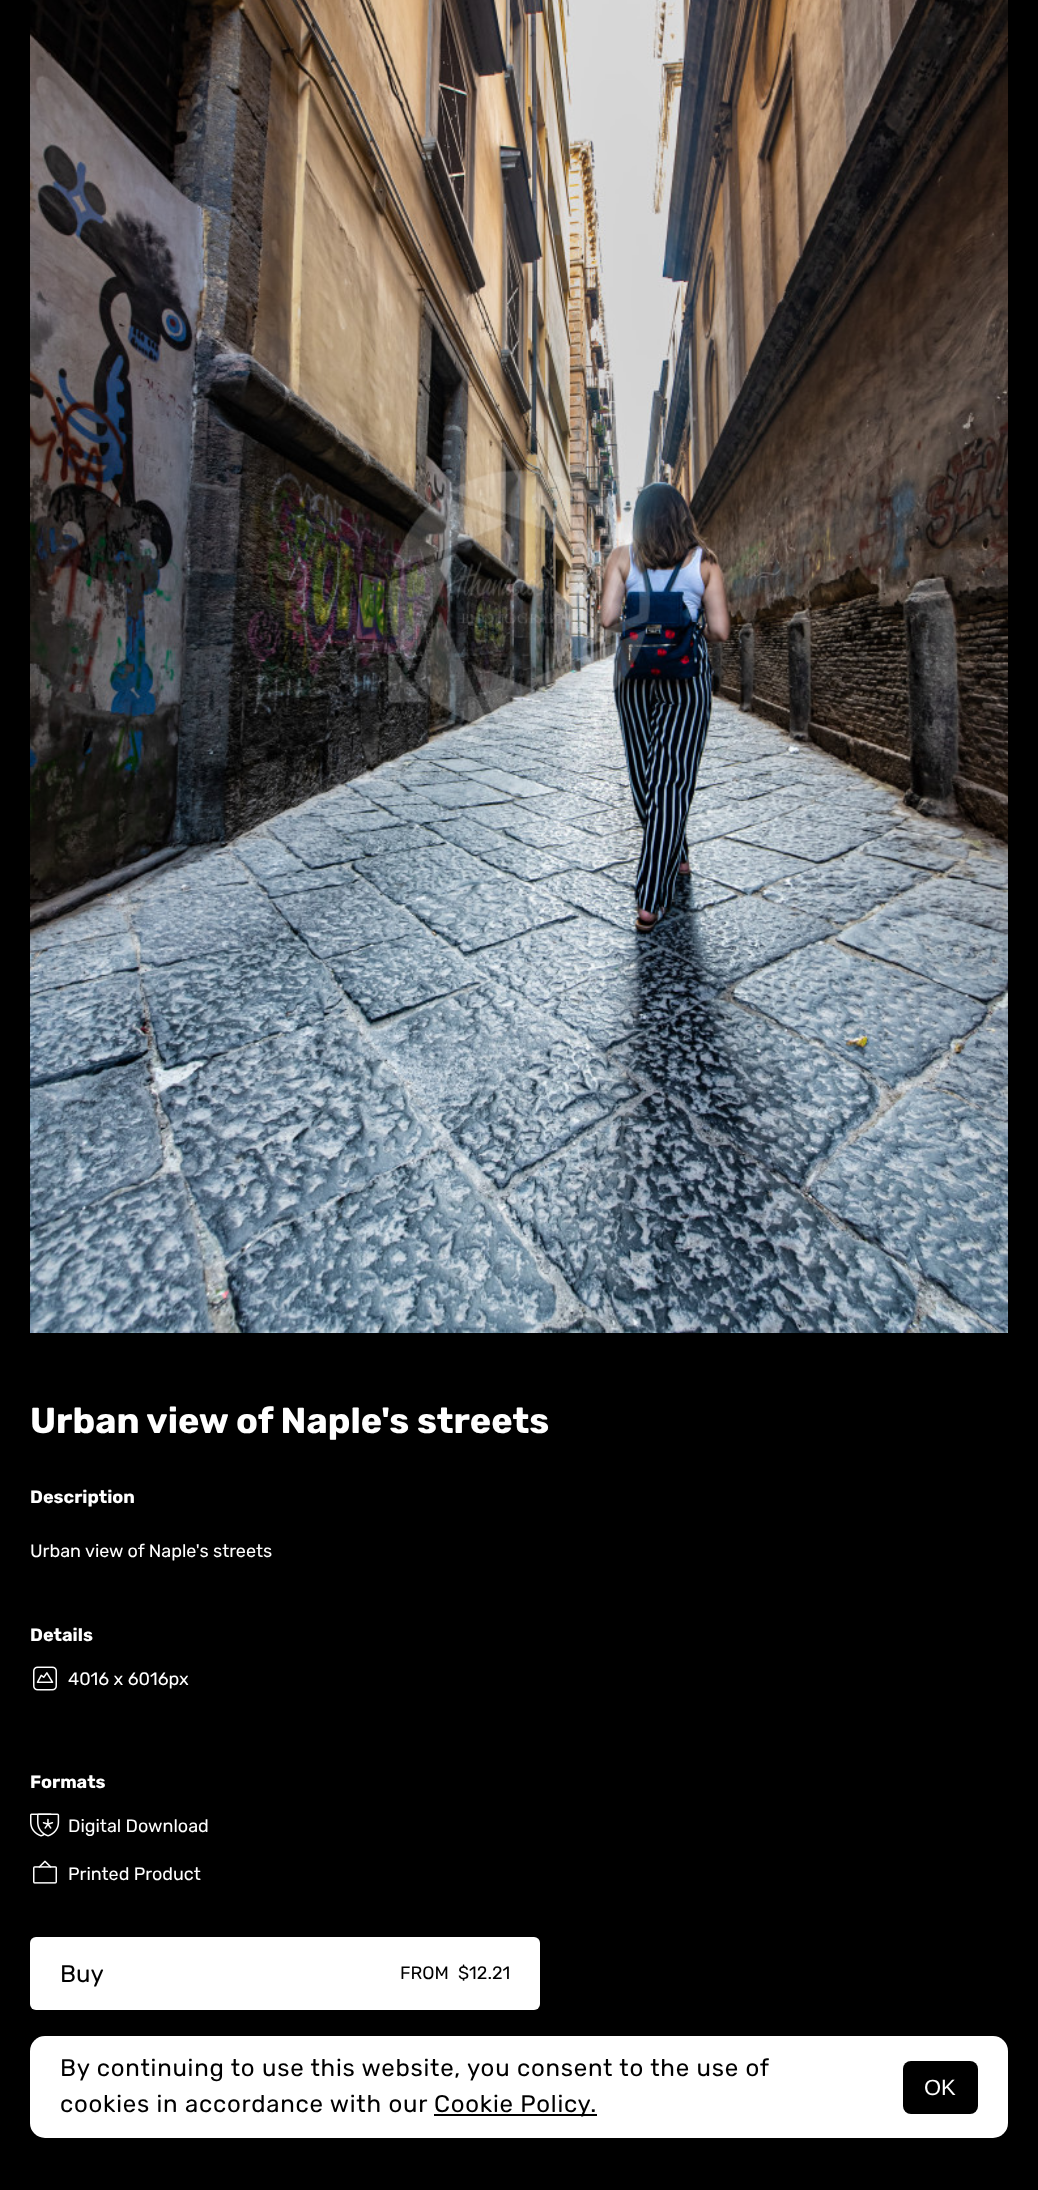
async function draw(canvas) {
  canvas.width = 1038
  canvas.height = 2190
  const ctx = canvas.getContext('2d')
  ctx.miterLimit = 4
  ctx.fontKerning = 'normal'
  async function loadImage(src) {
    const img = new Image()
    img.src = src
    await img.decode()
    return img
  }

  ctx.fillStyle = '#000'
  ctx.fillRect(0, 0, 1038, 2190)
  ctx.drawImage(await loadImage('image0.png'), 30, 0, 978, 1333)
  ctx.font = 'bold 36px Rubik'
  ctx.fillStyle = '#fff'
  ctx.fillText('Urban view of Naple\'s streets', 30, 1433)
  ctx.font = 'bold 18px Rubik'
  ctx.fillText('Description', 30, 1503)
  ctx.font = '18px Rubik'
  ctx.fillText('Urban view of Naple\'s streets', 30, 1557)
  ctx.font = 'bold 18px Rubik'
  ctx.fillText('Details', 30, 1641)
  ctx.drawImage(await loadImage('image1.png'), 33, 1666, 24, 25)
  ctx.font = '18px Rubik'
  ctx.fillText('4016 x 6016px', 68, 1685)
  ctx.font = 'bold 18px Rubik'
  ctx.fillText('Formats', 30, 1788)
  ctx.drawImage(await loadImage('image2.png'), 30, 1813, 30, 24)
  ctx.font = '18px Rubik'
  ctx.fillText('Digital Download', 68, 1832)
  ctx.drawImage(await loadImage('image3.png'), 33, 1860, 24, 24)
  ctx.fillText('Printed Product', 68, 1880)
  ctx.beginPath()
  ctx.roundRect(30, 1937, 510, 73, 6)
  ctx.fill()
  ctx.font = '24px Rubik'
  ctx.fillStyle = '#000'
  ctx.fillText('Buy', 60, 1982)
  ctx.font = '18px Rubik'
  ctx.fillText('FROM', 400, 1979)
  ctx.fillText('$12.21', 458, 1979)
  ctx.fillStyle = '#fff'
  ctx.beginPath()
  ctx.roundRect(30, 2036, 978, 102, 15)
  ctx.fill()
  ctx.letterSpacing = '0.75px'
  ctx.font = '24px Rubik'
  ctx.fillStyle = '#000'
  ctx.fillText('By continuing to use this website, you consent to the use of', 60, 2076)
  ctx.fillText('cookies in accordance with our', 60, 2112)
  ctx.fillRect(434, 2114, 163, 2)
  ctx.fillText('Cookie Policy.', 434, 2112)
  ctx.beginPath()
  ctx.roundRect(903, 2061, 75, 53, 8)
  ctx.fill()
  ctx.letterSpacing = '0px'
  ctx.font = '22px Liberation Sans'
  ctx.fillStyle = '#fff'
  ctx.fillText('OK', 924, 2095)
}

draw(document.querySelector('canvas'))
